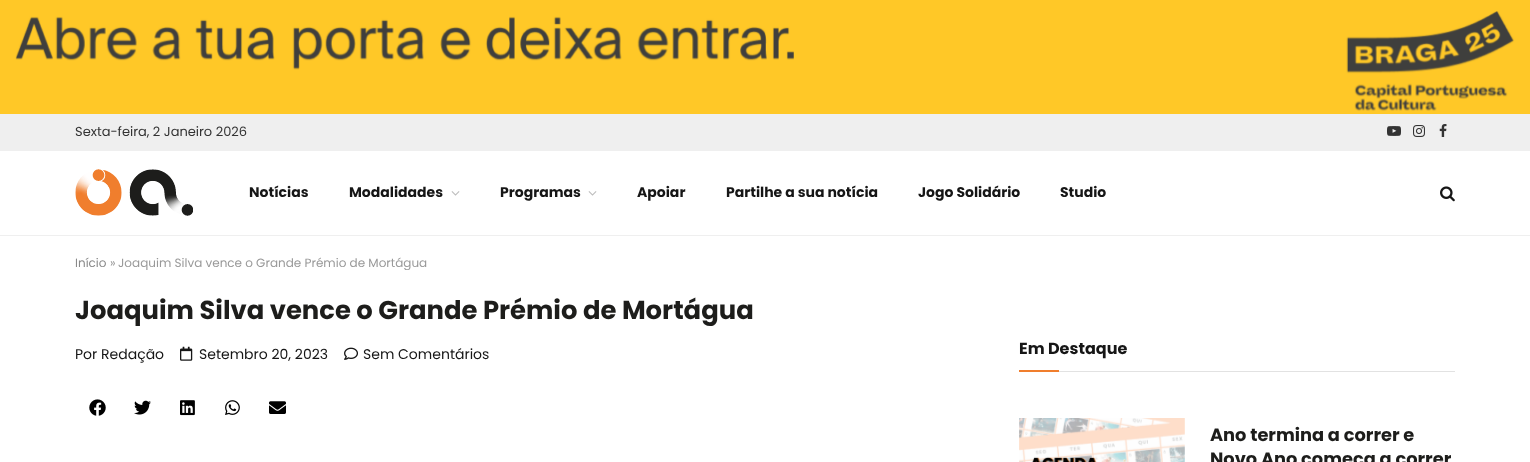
async function draw(canvas) {
  canvas.width = 1530
  canvas.height = 462
  const ctx = canvas.getContext('2d')
  ctx.miterLimit = 4
  ctx.fontKerning = 'normal'
  async function loadImage(src) {
    const img = new Image()
    img.src = src
    await img.decode()
    return img
  }

  ctx.fillStyle = '#fff'
  ctx.fillRect(0, 0, 1530, 462)
  ctx.drawImage(await loadImage('image0.png'), 0, 0, 1530, 114)
  ctx.fillStyle = '#efefef'
  ctx.fillRect(0, 114, 1530, 37)
  ctx.font = '13px Poppins'
  ctx.fillStyle = '#333'
  ctx.fillText('Sexta-feira, 2 Janeiro 2026', 75, 136)
  ctx.drawImage(await loadImage('image1.png'), 1387, 126, 14, 10)
  ctx.drawImage(await loadImage('image2.png'), 1413, 125, 12, 12)
  ctx.drawImage(await loadImage('image3.png'), 1439, 124, 8, 13)
  ctx.fillStyle = '#efefef'
  ctx.fillRect(0, 235, 1530, 1)
  ctx.drawImage(await loadImage('image4.png'), 75, 169, 118, 47)
  ctx.font = 'bold 14px Poppins'
  ctx.fillStyle = '#161616'
  ctx.fillText('Notícias', 249, 197)
  ctx.fillText('Modalidades', 349, 197)
  ctx.drawImage(await loadImage('image5.png'), 451, 191, 9, 5)
  ctx.fillText('Programas', 500, 197)
  ctx.drawImage(await loadImage('image5.png'), 588, 191, 9, 5)
  ctx.fillText('Apoiar', 637, 197)
  ctx.fillText('Partilhe a sua notícia', 726, 197)
  ctx.fillText('Jogo Solidário', 918, 197)
  ctx.fillText('Studio', 1060, 197)
  ctx.drawImage(await loadImage('image6.png'), 1440, 186, 15, 16)
  ctx.font = '12px Poppins'
  ctx.fillStyle = '#8a8a8a'
  ctx.fillText('Início', 75, 267)
  ctx.fillStyle = '#999'
  ctx.fillText('»', 110, 267)
  ctx.save()
  ctx.beginPath()
  ctx.rect(40, 256, 1450, 14)
  ctx.clip()
  ctx.fillText('Joaquim Silva vence o Grande Prémio de Mortágua', 118, 267)
  ctx.restore()
  ctx.font = 'bold 25.85px Poppins'
  ctx.fillStyle = '#1d1d1b'
  ctx.fillText('Joaquim Silva vence o Grande Prémio de Mortágua', 75, 319)
  ctx.font = '14px Poppins'
  ctx.fillStyle = '#161616'
  ctx.fillText('Por Redação', 75, 359)
  ctx.drawImage(await loadImage('image7.png'), 180, 346, 13, 15)
  ctx.fillText('Setembro 20, 2023', 199, 359)
  ctx.drawImage(await loadImage('image8.png'), 344, 347, 14, 13)
  ctx.fillText('Sem Comentários', 363, 359)
  ctx.drawImage(await loadImage('image9.png'), 89, 399, 17, 17)
  ctx.drawImage(await loadImage('image10.png'), 134, 400, 17, 15)
  ctx.drawImage(await loadImage('image11.png'), 180, 400, 15, 16)
  ctx.drawImage(await loadImage('image12.png'), 225, 400, 15, 15)
  ctx.drawImage(await loadImage('image13.png'), 269, 401, 17, 13)
  ctx.fillStyle = '#e2e2e2'
  ctx.fillRect(1059, 371, 396, 1)
  ctx.font = 'bold 16px Poppins'
  ctx.fillStyle = '#161616'
  ctx.fillText('Em Destaque', 1019, 354)
  ctx.fillStyle = '#f07e2d'
  ctx.fillRect(1019, 370, 40, 2)
  ctx.drawImage(await loadImage('image14.png'), 1019, 418, 166, 44)
  ctx.font = 'bold 17.8px Poppins'
  ctx.fillStyle = '#1d1d1b'
  ctx.fillText('Ano termina a correr e', 1210, 441)
  ctx.fillText('Novo Ano começa a correr', 1210, 465)
}

draw(document.querySelector('canvas'))
